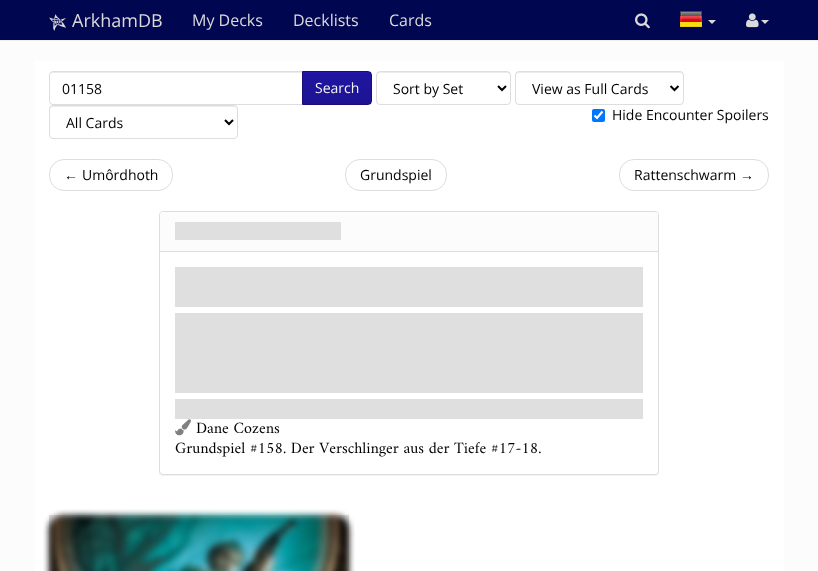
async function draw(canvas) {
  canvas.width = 818
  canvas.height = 571
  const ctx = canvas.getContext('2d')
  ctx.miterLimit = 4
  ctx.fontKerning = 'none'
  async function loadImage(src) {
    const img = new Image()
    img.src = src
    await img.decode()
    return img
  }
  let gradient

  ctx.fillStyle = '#fcfcfc'
  ctx.fillRect(0, 0, 818, 571)
  ctx.fillStyle = '#000650'
  ctx.fillRect(0, 0, 818, 40)
  ctx.fillStyle = '#eee'
  ctx.fillRect(0, 40, 818, 1)
  ctx.drawImage(await loadImage('image0.png'), 49, 14, 17, 17)
  ctx.font = '18px Open Sans'
  ctx.fillStyle = '#dadada'
  ctx.fillText('ArkhamDB', 72, 27)
  ctx.font = '16px Open Sans'
  ctx.fillText('My Decks', 192, 26)
  ctx.fillText('Decklists', 293, 26)
  ctx.fillText('Cards', 389, 26)
  ctx.drawImage(await loadImage('image1.png'), 635, 13, 15, 16)
  ctx.drawImage(await loadImage('image2.png'), 680, 11, 22, 16)
  ctx.beginPath()
  ctx.moveTo(708, 20)
  ctx.lineTo(716, 20)
  ctx.lineTo(712, 24)
  ctx.closePath()
  ctx.fill()
  ctx.drawImage(await loadImage('image3.png'), 746, 13, 13, 15)
  ctx.beginPath()
  ctx.moveTo(761, 20)
  ctx.lineTo(769, 20)
  ctx.lineTo(765, 24)
  ctx.closePath()
  ctx.fill()
  ctx.fillStyle = '#fff'
  ctx.fillRect(34, 61, 750, 510)
  ctx.fillStyle = '#ececec'
  ctx.beginPath()
  ctx.moveTo(53, 73)
  ctx.lineTo(302, 73)
  ctx.lineTo(302, 72)
  ctx.lineTo(53, 72)
  ctx.bezierCurveTo(51, 72, 50, 74, 50, 76)
  ctx.bezierCurveTo(50, 74, 51, 73, 53, 73)
  ctx.closePath()
  ctx.fill()
  ctx.beginPath()
  ctx.roundRect(49.5, 71.5, 253, 33, [3.5, 0, 0, 3.5])
  ctx.strokeStyle = '#ddd'
  ctx.stroke()
  ctx.font = '14px Open Sans'
  ctx.fillStyle = '#000'
  ctx.fillText('01158', 62, 94)
  gradient = ctx.createLinearGradient(337, 72, 337, 104)
  gradient.addColorStop(0, '#2317ae')
  gradient.addColorStop(0.06, '#2015a0')
  gradient.addColorStop(1, '#1d1392')
  ctx.fillStyle = gradient
  ctx.fillRect(303, 72, 68, 32)
  ctx.beginPath()
  ctx.roundRect(302.5, 71.5, 69, 33, [0, 3.5, 3.5, 0])
  ctx.strokeStyle = '#170f73'
  ctx.stroke()
  ctx.fillStyle = '#f5f5f5'
  ctx.fillText('Search', 315, 93)
  ctx.fillStyle = '#ececec'
  ctx.beginPath()
  ctx.moveTo(380, 73)
  ctx.lineTo(507, 73)
  ctx.bezierCurveTo(509, 73, 510, 74, 510, 76)
  ctx.bezierCurveTo(510, 74, 510, 72, 508, 72)
  ctx.lineTo(379, 72)
  ctx.bezierCurveTo(377, 72, 377, 74, 377, 76)
  ctx.bezierCurveTo(377, 74, 378, 73, 380, 73)
  ctx.closePath()
  ctx.fill()
  ctx.beginPath()
  ctx.roundRect(376.5, 71.5, 134, 33, 3.5)
  ctx.strokeStyle = '#ddd'
  ctx.stroke()
  ctx.beginPath()
  ctx.moveTo(498, 86)
  ctx.lineTo(502, 90)
  ctx.lineTo(506, 86)
  ctx.strokeStyle = '#000'
  ctx.lineWidth = 2
  ctx.stroke()
  ctx.fillStyle = '#000'
  ctx.fillText('Sort by Set', 393, 94)
  ctx.fillStyle = '#ececec'
  ctx.beginPath()
  ctx.moveTo(519, 73)
  ctx.lineTo(680, 73)
  ctx.bezierCurveTo(682, 73, 683, 74, 683, 76)
  ctx.lineTo(683, 75)
  ctx.bezierCurveTo(683, 73, 682, 72, 680, 72)
  ctx.lineTo(519, 72)
  ctx.bezierCurveTo(517, 72, 516, 73, 516, 75)
  ctx.lineTo(516, 76)
  ctx.bezierCurveTo(516, 74, 517, 73, 519, 73)
  ctx.closePath()
  ctx.fill()
  ctx.beginPath()
  ctx.roundRect(515.5, 71.5, 168, 33, 3.5)
  ctx.strokeStyle = '#ddd'
  ctx.lineWidth = 1
  ctx.stroke()
  ctx.beginPath()
  ctx.moveTo(670.5, 86)
  ctx.lineTo(674.5, 90)
  ctx.lineTo(678.5, 86)
  ctx.strokeStyle = '#000'
  ctx.lineWidth = 2
  ctx.stroke()
  ctx.fillStyle = '#000'
  ctx.fillText('View as Full Cards', 532, 94)
  ctx.fillStyle = '#ececec'
  ctx.beginPath()
  ctx.moveTo(53, 107)
  ctx.lineTo(234, 107)
  ctx.bezierCurveTo(236, 107, 237, 108, 237, 110)
  ctx.bezierCurveTo(237, 108, 236, 106, 234, 106)
  ctx.lineTo(52, 106)
  ctx.bezierCurveTo(50, 107, 50, 108, 50, 110)
  ctx.bezierCurveTo(50, 108, 51, 107, 53, 107)
  ctx.closePath()
  ctx.fill()
  ctx.beginPath()
  ctx.roundRect(49.5, 105.5, 188, 33, 3.5)
  ctx.strokeStyle = '#ddd'
  ctx.lineWidth = 1
  ctx.stroke()
  ctx.beginPath()
  ctx.moveTo(225, 120)
  ctx.lineTo(229, 124)
  ctx.lineTo(233, 120)
  ctx.strokeStyle = '#000'
  ctx.lineWidth = 2
  ctx.stroke()
  ctx.fillStyle = '#000'
  ctx.fillText('All Cards', 66, 128)
  ctx.fillStyle = '#0075ff'
  ctx.beginPath()
  ctx.roundRect(592, 109, 13, 13, 2)
  ctx.fill()
  ctx.beginPath()
  ctx.moveTo(594.5, 115.5)
  ctx.lineTo(597, 118)
  ctx.lineTo(602.5, 111.5)
  ctx.strokeStyle = '#fff'
  ctx.lineWidth = 2.1
  ctx.stroke()
  ctx.fillStyle = '#000'
  ctx.fillText('Hide Encounter Spoilers', 612, 120)
  ctx.beginPath()
  ctx.roundRect(49.5, 159.5, 123, 31, 14.5)
  ctx.strokeStyle = '#ddd'
  ctx.lineWidth = 1
  ctx.stroke()
  ctx.font = '14px Liberation Sans'
  ctx.fillText('←', 64, 180)
  ctx.font = '14px Open Sans'
  ctx.fillText('Umôrdhoth', 82, 180)
  ctx.beginPath()
  ctx.roundRect(345.5, 159.5, 101, 31, 14.5)
  ctx.stroke()
  ctx.fillText('Grundspiel', 360, 180)
  ctx.beginPath()
  ctx.roundRect(619.5, 159.5, 149, 31, 14.5)
  ctx.stroke()
  ctx.fillText('Rattenschwarm', 634, 180)
  ctx.font = '14px Liberation Sans'
  ctx.fillText('→', 740, 180)
  ctx.fillStyle = '#0000000d'
  ctx.filter = 'blur(0.5px)'
  ctx.beginPath()
  ctx.roundRect(159, 212, 500, 264, 4)
  ctx.fill()
  ctx.filter = 'none'
  ctx.fillStyle = '#fff'
  ctx.beginPath()
  ctx.roundRect(159.5, 211.5, 499, 263, 3.5)
  ctx.fill()
  ctx.stroke()
  ctx.fillStyle = '#fcfcfc'
  ctx.beginPath()
  ctx.roundRect(160, 212, 498, 40, [3, 3, 0, 0])
  ctx.fill()
  ctx.fillStyle = '#ddd'
  ctx.fillRect(160, 251, 498, 1)
  ctx.fillStyle = '#dfdfdf'
  ctx.fillRect(175, 222, 166, 18)
  ctx.fillRect(175, 267, 468, 40)
  ctx.fillRect(175, 313, 468, 80)
  ctx.fillRect(175, 399, 468, 20)
  ctx.drawImage(await loadImage('image4.png'), 175, 419, 16, 17)
  ctx.font = '16px Amiri'
  ctx.fillStyle = '#000'
  ctx.fillText('Dane Cozens', 196, 433)
  ctx.fillText('Grundspiel #158. Der Verschlinger aus der Tiefe #17-18.', 175, 453)
  ctx.fillStyle = '#dfdfdf'
  ctx.fillRect(49, 515, 300, 56)
  ctx.drawImage(await loadImage('image5.png'), 43, 509, 312, 62)
}

draw(document.querySelector('canvas'))
